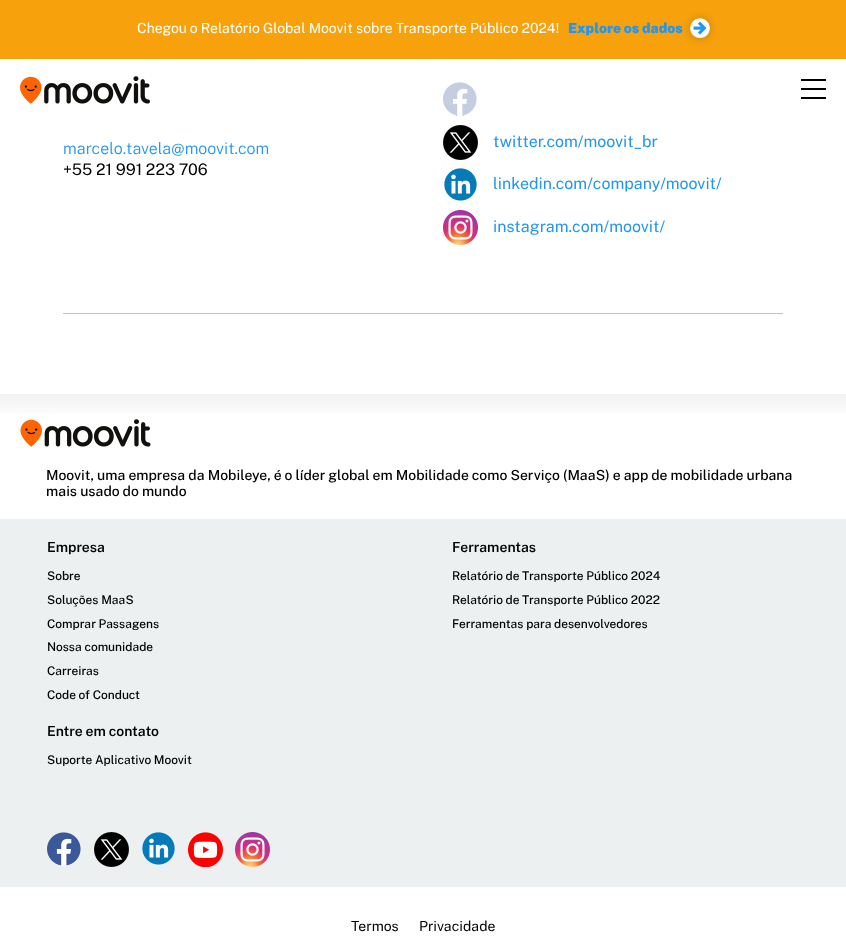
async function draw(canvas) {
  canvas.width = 846
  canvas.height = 948
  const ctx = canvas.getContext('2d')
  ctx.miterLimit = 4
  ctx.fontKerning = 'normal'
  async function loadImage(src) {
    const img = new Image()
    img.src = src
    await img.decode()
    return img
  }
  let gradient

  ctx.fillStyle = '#fff'
  ctx.fillRect(0, 0, 846, 948)
  ctx.drawImage(await loadImage('image2.png'), 443, 82, 34, 34)
  ctx.fillStyle = '#ffffffb3'
  ctx.fillRect(443, 82, 34, 33)
  ctx.fillStyle = '#f7a20c'
  ctx.fillRect(0, 0, 846, 59)
  ctx.fillStyle = '#00000033'
  ctx.filter = 'blur(4.5px)'
  ctx.beginPath()
  ctx.roundRect(690, 18, 20, 21, 10)
  ctx.fill()
  ctx.filter = 'none'
  ctx.font = '14px Public Sans'
  ctx.fillStyle = '#fff'
  ctx.fillText('Chegou o Relatório Global Moovit sobre Transporte Público 2024!', 137, 33)
  ctx.font = '900 14px Public Sans'
  ctx.fillStyle = '#2196f3'
  ctx.fillText('Explore os dados', 568, 33)
  ctx.drawImage(await loadImage('image0.png'), 690, 18, 20, 20)
  ctx.drawImage(await loadImage('image1.png'), 20, 76, 130, 28)
  ctx.fillStyle = '#000'
  ctx.fillRect(801, 79, 25, 2)
  ctx.fillRect(801, 88, 25, 2)
  ctx.fillRect(801, 97, 25, 2)
  ctx.fillStyle = '#bdc3c7'
  ctx.fillRect(63, 313, 720, 1)
  ctx.font = '300 16px Public Sans'
  ctx.fillStyle = '#2196f3'
  ctx.fillText('marcelo.tavela@moovit.com', 63, 154)
  ctx.font = '16px Public Sans'
  ctx.fillStyle = '#000'
  ctx.fillText('+55 21 991 223 706', 63, 175)
  ctx.drawImage(await loadImage('image3.png'), 443, 125, 35, 35)
  ctx.fillStyle = '#2196f3'
  ctx.fillText('twitter.com/moovit_br', 493, 147)
  ctx.drawImage(await loadImage('image4.png'), 444, 168, 33, 33)
  ctx.fillText('linkedin.com/company/moovit/', 493, 189)
  ctx.drawImage(await loadImage('image5.png'), 443, 210, 35, 35)
  ctx.fillText('instagram.com/moovit/', 493, 232)
  gradient = ctx.createLinearGradient(423, 394, 423, 418)
  gradient.addColorStop(0, '#f1f1f1')
  gradient.addColorStop(1, '#fff')
  ctx.fillStyle = gradient
  ctx.fillRect(0, 394, 846, 20)
  ctx.drawImage(await loadImage('image6.png'), 20, 419, 131, 28)
  ctx.font = '500 14px Public Sans'
  ctx.fillStyle = '#000'
  ctx.fillText('Moovit, uma empresa da Mobileye, é o líder global em Mobilidade como Serviço (MaaS) e app de mobilidade urbana', 46, 480)
  ctx.fillText('mais usado do mundo', 46, 496)
  ctx.fillStyle = '#ecf0f1'
  ctx.fillRect(0, 519, 846, 368)
  ctx.font = '600 14px Public Sans'
  ctx.fillStyle = '#000'
  ctx.fillText('Empresa', 47, 552)
  ctx.font = '500 12px Public Sans'
  ctx.fillText('Sobre', 47, 580)
  ctx.fillText('Soluções MaaS', 47, 604)
  ctx.fillText('Comprar Passagens', 47, 628)
  ctx.fillText('Nossa comunidade', 47, 651)
  ctx.fillText('Carreiras', 47, 675)
  ctx.fillText('Code of Conduct', 47, 699)
  ctx.font = '600 14px Public Sans'
  ctx.fillText('Ferramentas', 452, 552)
  ctx.font = '500 12px Public Sans'
  ctx.fillText('Relatório de Transporte Público 2024', 452, 580)
  ctx.fillText('Relatório de Transporte Público 2022', 452, 604)
  ctx.fillText('Ferramentas para desenvolvedores', 452, 628)
  ctx.font = '600 14px Public Sans'
  ctx.fillText('Entre em contato', 47, 736)
  ctx.font = '500 12px Public Sans'
  ctx.fillText('Suporte Aplicativo Moovit', 47, 764)
  ctx.drawImage(await loadImage('image7.png'), 47, 832, 34, 34)
  ctx.drawImage(await loadImage('image8.png'), 94, 832, 35, 35)
  ctx.drawImage(await loadImage('image9.png'), 142, 832, 33, 33)
  ctx.drawImage(await loadImage('image10.png'), 188, 832, 35, 35)
  ctx.drawImage(await loadImage('image11.png'), 235, 832, 35, 35)
  ctx.font = '14px Public Sans'
  ctx.fillText('Termos', 351, 931)
  ctx.fillText('Privacidade', 419, 931)
}

draw(document.querySelector('canvas'))
